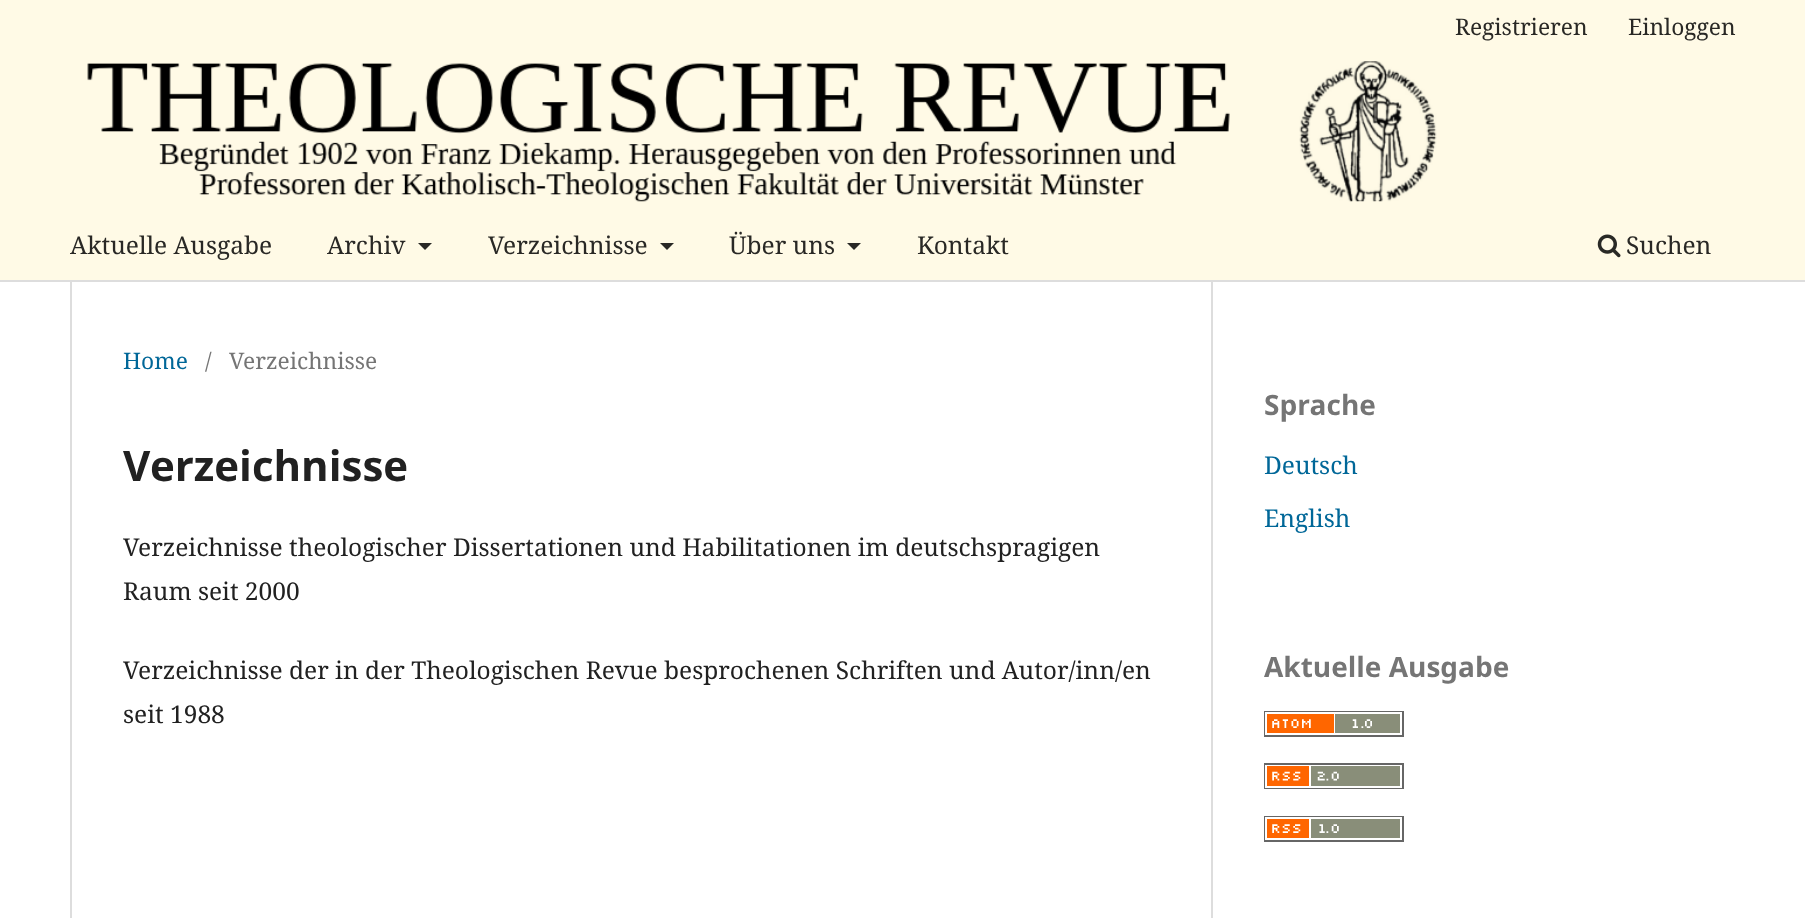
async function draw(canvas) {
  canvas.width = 1805
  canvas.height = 918
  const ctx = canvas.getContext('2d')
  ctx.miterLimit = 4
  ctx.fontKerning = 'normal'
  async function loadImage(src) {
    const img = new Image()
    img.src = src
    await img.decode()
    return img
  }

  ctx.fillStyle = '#fff'
  ctx.fillRect(0, 0, 1805, 918)
  ctx.fillStyle = '#fffae6'
  ctx.fillRect(0, 0, 1805, 280)
  ctx.fillStyle = '#ddd'
  ctx.fillRect(0, 280, 1805, 2)
  ctx.font = '22.75px Noto Serif'
  ctx.fillStyle = '#292825'
  ctx.fillText('Registrieren', 1455, 35)
  ctx.fillText('Einloggen', 1628, 35)
  ctx.font = '24.5px Noto Serif'
  ctx.fillText('Aktuelle Ausgabe', 70, 254)
  ctx.fillText('Archiv', 327, 254)
  ctx.beginPath()
  ctx.moveTo(418, 243)
  ctx.lineTo(432, 243)
  ctx.lineTo(425, 250)
  ctx.closePath()
  ctx.fill()
  ctx.fillText('Verzeichnisse', 488, 254)
  ctx.beginPath()
  ctx.moveTo(660, 243)
  ctx.lineTo(674, 243)
  ctx.lineTo(667, 250)
  ctx.closePath()
  ctx.fill()
  ctx.fillText('Über uns', 729, 254)
  ctx.beginPath()
  ctx.moveTo(847, 243)
  ctx.lineTo(861, 243)
  ctx.lineTo(854, 250)
  ctx.closePath()
  ctx.fill()
  ctx.fillText('Kontakt', 917, 254)
  ctx.drawImage(await loadImage('image0.png'), 1597, 234, 24, 24)
  ctx.fillText('Suchen', 1626, 254)
  ctx.drawImage(await loadImage('image1.png'), 87, 61, 1350, 141)
  ctx.fillStyle = '#ddd'
  ctx.fillRect(70, 282, 2, 636)
  ctx.font = '22.75px Noto Serif'
  ctx.fillStyle = '#006798'
  ctx.fillText('Home', 123, 369)
  ctx.fillStyle = '#757575'
  ctx.fillText('/', 205, 369)
  ctx.fillText('Verzeichnisse', 229, 369)
  ctx.fillStyle = '#ddd'
  ctx.fillRect(1211, 282, 2, 636)
  ctx.font = 'bold 42px Noto Sans'
  ctx.fillStyle = '#212121'
  ctx.fillText('Verzeichnisse', 123, 481)
  ctx.font = '24.5px Noto Serif'
  ctx.fillText('Verzeichnisse theologischer Dissertationen und Habilitationen im deutschspragigen', 123, 556)
  ctx.fillText('Raum seit 2000', 123, 600)
  ctx.fillText('Verzeichnisse der in der Theologischen Revue besprochenen Schriften und Autor/inn/en', 123, 679)
  ctx.fillText('seit 1988', 123, 723)
  ctx.font = 'bold 28px Noto Sans'
  ctx.fillStyle = '#757575'
  ctx.fillText('Sprache', 1264, 415)
  ctx.font = '24.5px Noto Serif'
  ctx.fillStyle = '#006798'
  ctx.fillText('Deutsch', 1264, 474)
  ctx.fillText('English', 1264, 527)
  ctx.font = 'bold 28px Noto Sans'
  ctx.fillStyle = '#757575'
  ctx.fillText('Aktuelle Ausgabe', 1264, 677)
  ctx.drawImage(await loadImage('image2.png'), 1264, 711, 140, 26)
  ctx.drawImage(await loadImage('image3.png'), 1264, 763, 140, 26)
  ctx.drawImage(await loadImage('image4.png'), 1264, 816, 140, 26)
}

draw(document.querySelector('canvas'))
